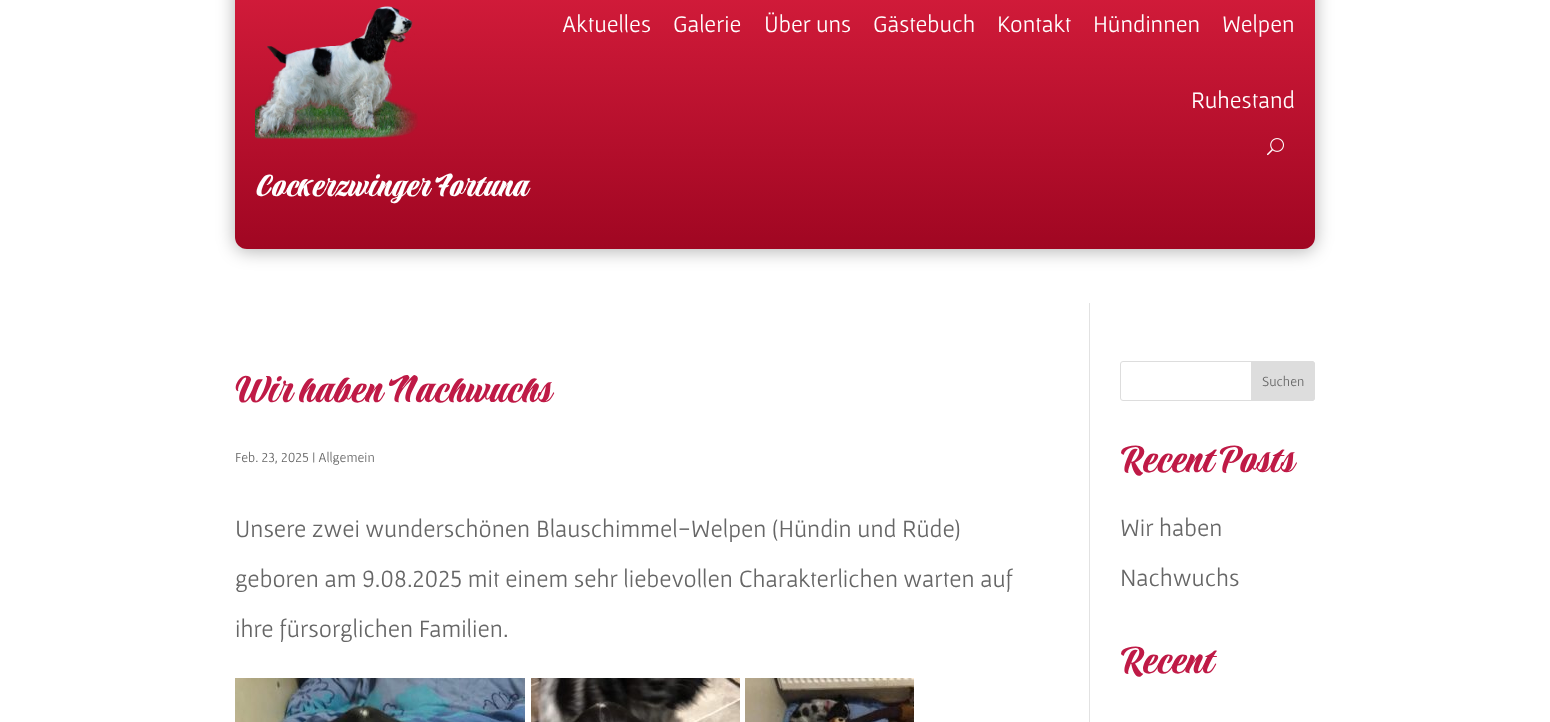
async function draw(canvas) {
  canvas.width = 1550
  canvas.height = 722
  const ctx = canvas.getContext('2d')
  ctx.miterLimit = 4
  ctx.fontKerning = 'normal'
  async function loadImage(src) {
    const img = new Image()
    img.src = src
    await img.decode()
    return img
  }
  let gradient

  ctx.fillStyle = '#fff'
  ctx.fillRect(0, 0, 1550, 722)
  ctx.fillStyle = '#0000004d'
  ctx.filter = 'blur(9px)'
  ctx.beginPath()
  ctx.roundRect(235, -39, 1080, 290, 12)
  ctx.fill()
  ctx.filter = 'none'
  gradient = ctx.createLinearGradient(775, -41, 775, 249)
  gradient.addColorStop(0, '#d81e3d')
  gradient.addColorStop(1, '#a00622')
  ctx.fillStyle = gradient
  ctx.beginPath()
  ctx.roundRect(235, -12, 1080, 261, 12)
  ctx.fill()
  ctx.drawImage(await loadImage('image0.png'), 255, 6, 163, 134)
  ctx.font = '24px Gafata'
  ctx.fillStyle = '#fff'
  ctx.fillText('Aktuelles', 562, 32)
  ctx.fillText('Galerie', 673, 32)
  ctx.fillText('Über uns', 764, 32)
  ctx.fillText('Gästebuch', 873, 32)
  ctx.fillText('Kontakt', 997, 32)
  ctx.fillText('Hündinnen', 1093, 32)
  ctx.fillText('Welpen', 1222, 32)
  ctx.fillText('Ruhestand', 1191, 108)
  ctx.drawImage(await loadImage('image1.png'), 1267, 138, 17, 18)
  ctx.font = '36px Praise'
  ctx.fillText('Cockerzwinger Fortuna', 255, 196)
  ctx.fillStyle = '#e2e2e2'
  ctx.fillRect(1089, 303, 1, 419)
  ctx.font = '43px Praise'
  ctx.fillStyle = '#bf1a46'
  ctx.fillText('Wir haben Nachwuchs', 235, 402)
  ctx.font = '14px Gafata'
  ctx.fillStyle = '#666'
  ctx.fillText('Feb. 23, 2025 | Allgemein', 235, 462)
  ctx.font = '25px Gafata'
  ctx.fillText('Unsere zwei wunderschönen Blauschimmel-Welpen (Hündin und Rüde)', 235, 537)
  ctx.fillText('geboren am 9.08.2025 mit einem sehr liebevollen Charakterlichen warten auf', 235, 587)
  ctx.fillText('ihre fürsorglichen Familien.', 235, 637)
  ctx.drawImage(await loadImage('image2.png'), 235, 678, 290, 44)
  ctx.drawImage(await loadImage('image3.png'), 531, 678, 209, 44)
  ctx.drawImage(await loadImage('image4.png'), 745, 678, 169, 44)
  ctx.beginPath()
  ctx.roundRect(1120.5, 361.5, 194, 39, 2.5)
  ctx.strokeStyle = '#ddd'
  ctx.stroke()
  ctx.fillStyle = '#ddd'
  ctx.beginPath()
  ctx.roundRect(1251.5, 361.5, 63, 39, [0, 2.5, 2.5, 0])
  ctx.fill()
  ctx.stroke()
  ctx.font = '14px Gafata'
  ctx.fillStyle = '#666'
  ctx.fillText('Suchen', 1262, 386)
  ctx.font = '43px Praise'
  ctx.fillStyle = '#bf1a46'
  ctx.fillText('Recent Posts', 1120, 472)
  ctx.font = '25px Gafata'
  ctx.fillStyle = '#666'
  ctx.fillText('Wir haben', 1120, 536)
  ctx.fillText('Nachwuchs', 1120, 586)
  ctx.font = '43px Praise'
  ctx.fillStyle = '#bf1a46'
  ctx.fillText('Recent', 1120, 673)
}

draw(document.querySelector('canvas'))
